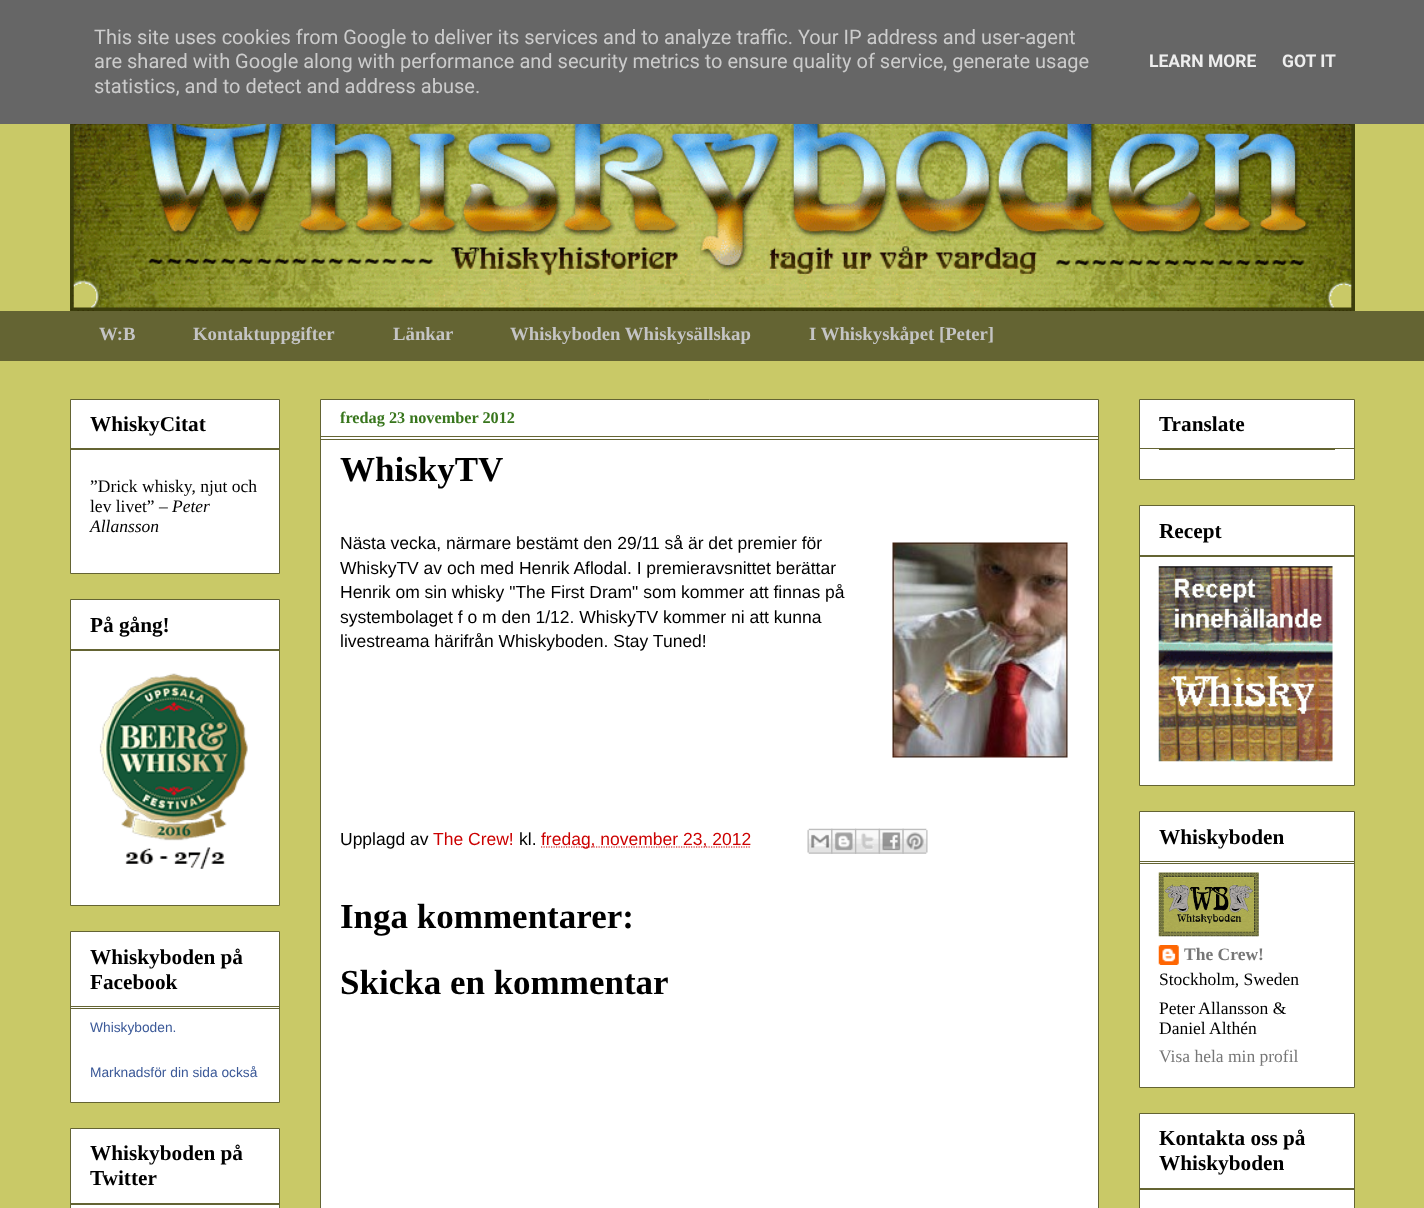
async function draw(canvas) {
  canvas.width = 1424
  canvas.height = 1208
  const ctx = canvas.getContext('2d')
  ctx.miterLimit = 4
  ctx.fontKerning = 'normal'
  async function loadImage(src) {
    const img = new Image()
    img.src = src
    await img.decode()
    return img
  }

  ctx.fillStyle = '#c9c967'
  ctx.fillRect(0, 0, 1424, 1208)
  ctx.fillStyle = '#666'
  ctx.fillRect(0, 0, 1424, 124)
  ctx.font = '20px Roboto'
  ctx.fillStyle = '#ccc'
  ctx.fillText('This site uses cookies from Google to deliver its services and to analyze traffic. Your IP address and user-agent', 94, 44)
  ctx.fillText('are shared with Google along with performance and security metrics to ensure quality of service, generate usage', 94, 68)
  ctx.fillText('statistics, and to detect and address abuse.', 94, 93)
  ctx.font = 'bold 17.5px Roboto'
  ctx.fillStyle = '#eee'
  ctx.fillText('LEARN MORE', 1149, 67)
  ctx.fillText('GOT IT', 1282, 67)
  ctx.drawImage(await loadImage('image0.png'), 70, 124, 1285, 187)
  ctx.fillStyle = '#646433'
  ctx.fillRect(0, 311, 1424, 50)
  ctx.font = 'bold 18.75px Liberation Serif'
  ctx.fillStyle = '#c4c4c4'
  ctx.fillText('W:B', 99, 340)
  ctx.fillText('Kontaktuppgifter', 193, 340)
  ctx.fillText('Länkar', 393, 340)
  ctx.fillText('Whiskyboden Whiskysällskap', 510, 340)
  ctx.fillText('I Whiskyskåpet [Peter]', 809, 340)
  ctx.fillStyle = '#fff'
  ctx.beginPath()
  ctx.rect(70.5, 399.5, 209, 174)
  ctx.fill()
  ctx.strokeStyle = '#646433'
  ctx.stroke()
  ctx.font = 'bold 21.25px Liberation Serif'
  ctx.fillStyle = '#000'
  ctx.fillText('WhiskyCitat', 90, 431)
  ctx.fillStyle = '#646433'
  ctx.fillRect(71, 448, 208, 2)
  ctx.font = '17.5px Liberation Serif'
  ctx.fillStyle = '#000'
  ctx.fillText('”Drick whisky, njut och', 90, 492)
  ctx.fillText('lev livet” –', 90, 512)
  ctx.font = 'italic 17.5px Liberation Serif'
  ctx.fillText('Peter', 172, 512)
  ctx.fillText('Allansson', 90, 532)
  ctx.fillStyle = '#fff'
  ctx.beginPath()
  ctx.rect(70.5, 599.5, 209, 306)
  ctx.fill()
  ctx.stroke()
  ctx.font = 'bold 21.25px Liberation Serif'
  ctx.fillStyle = '#000'
  ctx.fillText('På gång!', 90, 632)
  ctx.fillStyle = '#646433'
  ctx.fillRect(71, 649, 208, 2)
  ctx.drawImage(await loadImage('image1.png'), 99, 673, 149, 196)
  ctx.fillStyle = '#fff'
  ctx.beginPath()
  ctx.rect(70.5, 931.5, 209, 171)
  ctx.fill()
  ctx.stroke()
  ctx.fillStyle = '#646433'
  ctx.fillRect(71, 1006, 208, 1)
  ctx.fillStyle = '#000'
  ctx.fillText('Whiskyboden på', 90, 964)
  ctx.fillText('Facebook', 90, 989)
  ctx.fillStyle = '#646433'
  ctx.fillRect(71, 1008, 208, 1)
  ctx.font = '13.75px Liberation Sans'
  ctx.fillStyle = '#3b5998'
  ctx.fillText('Whiskyboden.', 90, 1032)
  ctx.fillText('Marknadsför din sida också', 90, 1077)
  ctx.fillStyle = '#fff'
  ctx.beginPath()
  ctx.rect(70.5, 1128.5, 209, 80)
  ctx.fill()
  ctx.stroke()
  ctx.font = 'bold 21.25px Liberation Serif'
  ctx.fillStyle = '#000'
  ctx.fillText('Whiskyboden på', 90, 1160)
  ctx.fillText('Twitter', 90, 1185)
  ctx.fillStyle = '#646433'
  ctx.fillRect(71, 1203, 208, 2)
  ctx.fillStyle = '#fff'
  ctx.beginPath()
  ctx.rect(320.5, 399.5, 778, 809)
  ctx.fill()
  ctx.stroke()
  ctx.fillStyle = '#646433'
  ctx.fillRect(321, 436, 777, 1)
  ctx.font = 'bold 16.25px Liberation Serif'
  ctx.fillStyle = '#38761d'
  ctx.fillText('fredag 23 november 2012', 340, 423)
  ctx.fillStyle = '#646433'
  ctx.fillRect(321, 439, 777, 1)
  ctx.font = 'bold 35px Liberation Serif'
  ctx.fillStyle = '#000'
  ctx.fillText('WhiskyTV', 340, 481)
  ctx.font = '17.5px Liberation Sans'
  ctx.fillText('Nästa vecka, närmare bestämt den 29/11 så är det premier för', 340, 549)
  ctx.drawImage(await loadImage('image2.png'), 892, 542, 176, 216)
  ctx.fillText('WhiskyTV av och med Henrik Aflodal. I premieravsnittet berättar', 340, 574)
  ctx.fillText('Henrik om sin whisky "The First Dram" som kommer att finnas på', 340, 598)
  ctx.fillText('systembolaget f o m den 1/12. WhiskyTV kommer ni att kunna', 340, 623)
  ctx.fillText('livestreama härifrån Whiskyboden. Stay Tuned!', 340, 647)
  ctx.fillText('Upplagd av', 340, 845)
  ctx.fillStyle = '#c00'
  ctx.fillText('The Crew!', 433, 845)
  ctx.fillStyle = '#000'
  ctx.fillText('kl.', 519, 845)
  ctx.beginPath()
  ctx.moveTo(541, 847)
  ctx.lineTo(751, 847)
  ctx.strokeStyle = '#c00'
  ctx.lineWidth = 1.2
  ctx.setLineDash([1.25, 1.25])
  ctx.stroke()
  ctx.fillStyle = '#c00'
  ctx.fillText('fredag, november 23, 2012', 541, 845)
  ctx.drawImage(await loadImage('image3.png'), 807, 828, 26, 26)
  ctx.drawImage(await loadImage('image4.png'), 831, 828, 26, 26)
  ctx.drawImage(await loadImage('image5.png'), 855, 828, 25, 26)
  ctx.drawImage(await loadImage('image6.png'), 878, 828, 26, 26)
  ctx.drawImage(await loadImage('image7.png'), 902, 828, 26, 26)
  ctx.font = 'bold 35px Liberation Serif'
  ctx.fillStyle = '#000'
  ctx.fillText('Inga kommentarer:', 340, 928)
  ctx.fillText('Skicka en kommentar', 340, 994)
  ctx.fillStyle = '#fff'
  ctx.beginPath()
  ctx.rect(1139.5, 399.5, 215, 80)
  ctx.fill()
  ctx.strokeStyle = '#646433'
  ctx.lineWidth = 1
  ctx.setLineDash([])
  ctx.stroke()
  ctx.fillStyle = '#646433'
  ctx.fillRect(1140, 448, 214, 1)
  ctx.font = 'bold 21.25px Liberation Serif'
  ctx.fillStyle = '#000'
  ctx.fillText('Translate', 1159, 431)
  ctx.fillStyle = '#646433'
  ctx.fillRect(1159, 449, 176, 1)
  ctx.fillStyle = '#fff'
  ctx.beginPath()
  ctx.rect(1139.5, 505.5, 215, 280)
  ctx.fill()
  ctx.stroke()
  ctx.fillStyle = '#000'
  ctx.fillText('Recept', 1159, 538)
  ctx.fillStyle = '#646433'
  ctx.fillRect(1140, 555, 214, 2)
  ctx.drawImage(await loadImage('image8.png'), 1158, 566, 175, 196)
  ctx.fillStyle = '#fff'
  ctx.beginPath()
  ctx.rect(1139.5, 811.5, 215, 276)
  ctx.fill()
  ctx.stroke()
  ctx.fillStyle = '#646433'
  ctx.fillRect(1140, 861, 214, 1)
  ctx.fillStyle = '#000'
  ctx.fillText('Whiskyboden', 1159, 844)
  ctx.fillStyle = '#646433'
  ctx.fillRect(1140, 863, 214, 1)
  ctx.drawImage(await loadImage('image9.png'), 1158, 872, 101, 65)
  ctx.drawImage(await loadImage('image10.png'), 1158, 945, 21, 20)
  ctx.font = 'bold 17.5px Liberation Serif'
  ctx.fillStyle = '#777'
  ctx.fillText('The Crew!', 1184, 960)
  ctx.font = '17.5px Liberation Serif'
  ctx.fillStyle = '#000'
  ctx.fillText('Stockholm, Sweden', 1159, 985)
  ctx.fillText('Peter Allansson &', 1159, 1014)
  ctx.fillText('Daniel Althén', 1159, 1034)
  ctx.fillStyle = '#777'
  ctx.fillText('Visa hela min profil', 1159, 1062)
  ctx.fillStyle = '#fff'
  ctx.beginPath()
  ctx.rect(1139.5, 1113.5, 215, 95)
  ctx.fill()
  ctx.stroke()
  ctx.font = 'bold 21.25px Liberation Serif'
  ctx.fillStyle = '#000'
  ctx.fillText('Kontakta oss på', 1159, 1145)
  ctx.fillText('Whiskyboden', 1159, 1170)
  ctx.fillStyle = '#646433'
  ctx.fillRect(1140, 1188, 214, 2)
}

draw(document.querySelector('canvas'))
